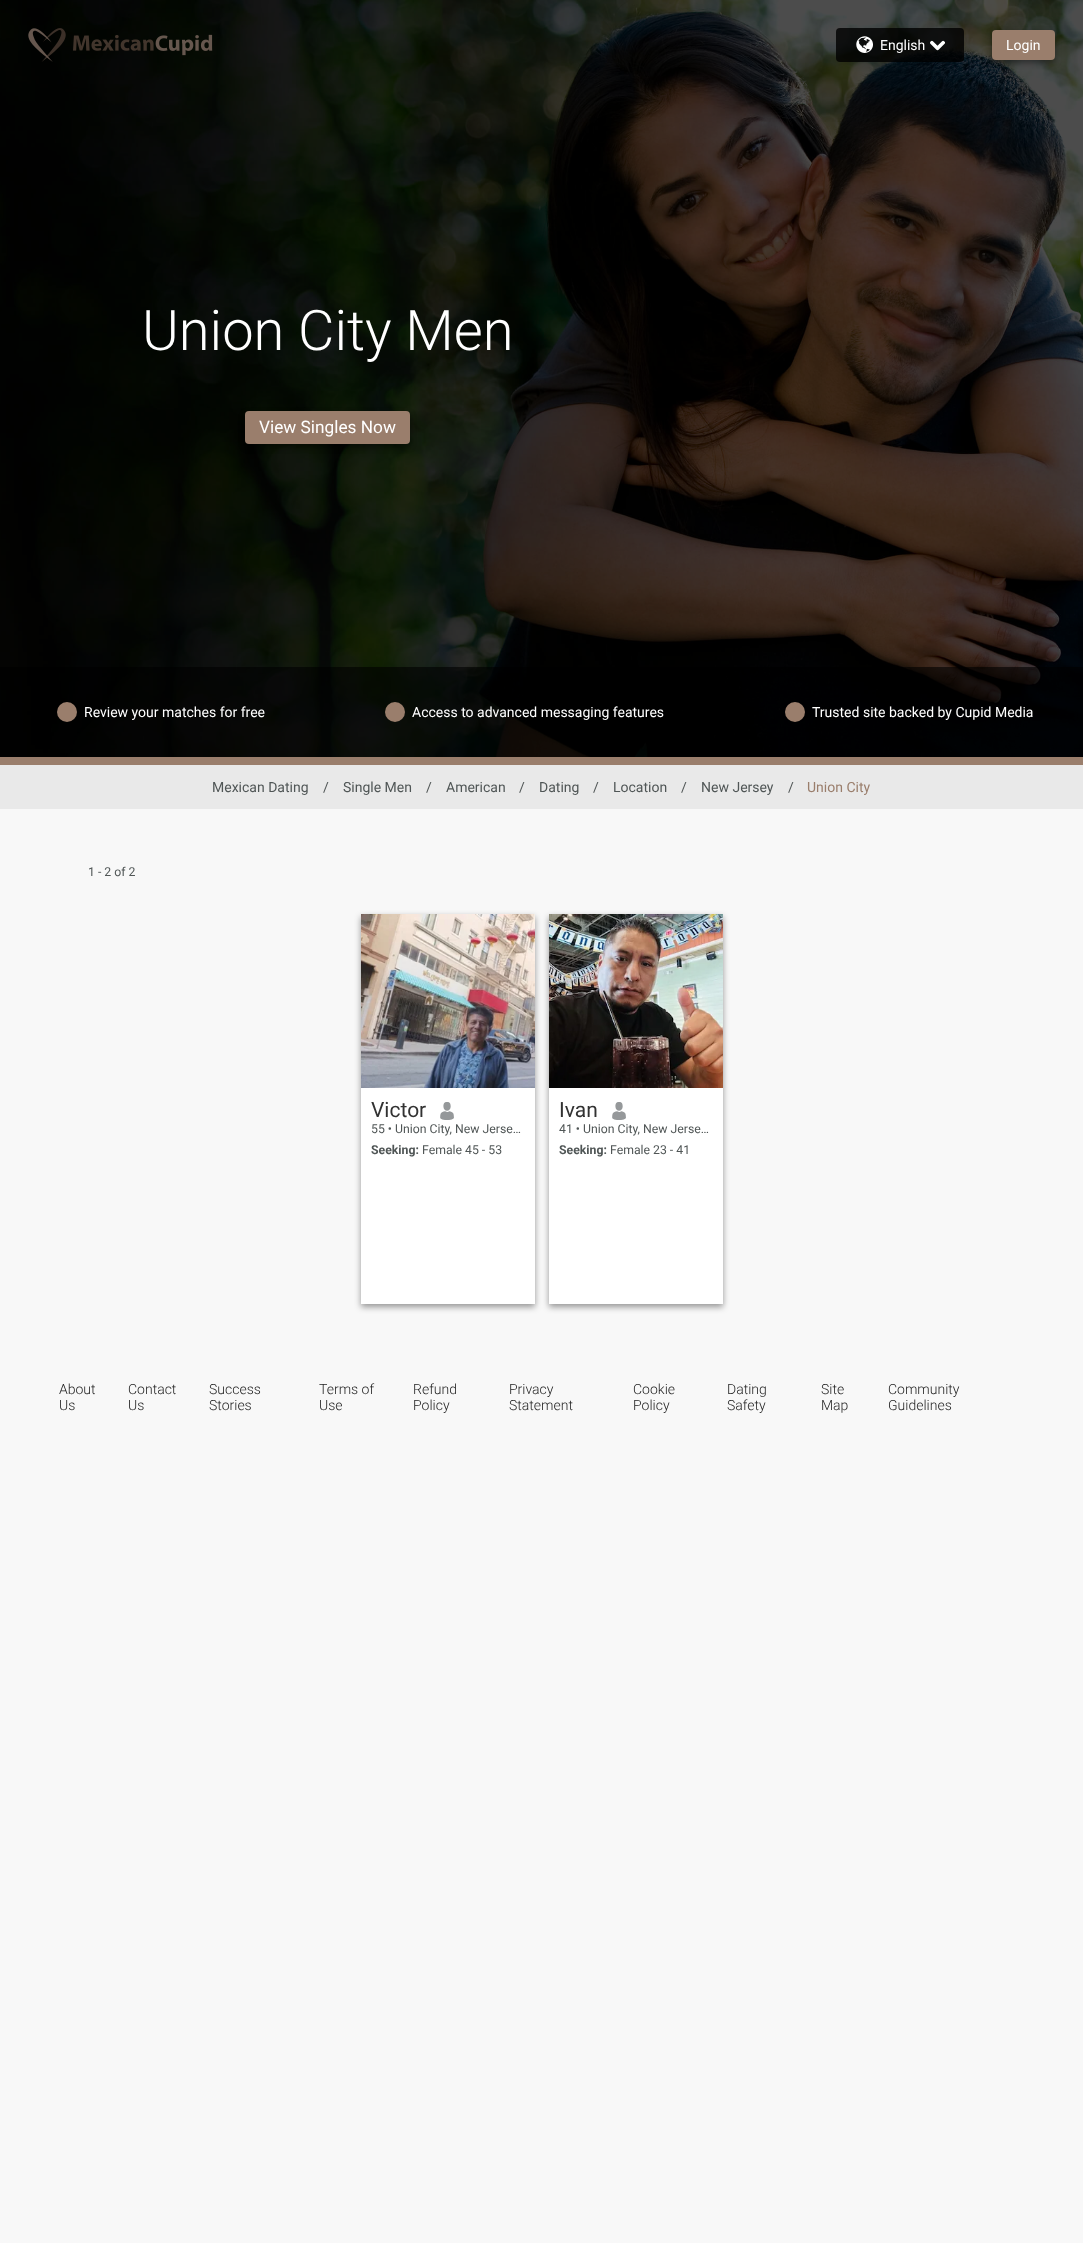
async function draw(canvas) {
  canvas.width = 1083
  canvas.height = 2243
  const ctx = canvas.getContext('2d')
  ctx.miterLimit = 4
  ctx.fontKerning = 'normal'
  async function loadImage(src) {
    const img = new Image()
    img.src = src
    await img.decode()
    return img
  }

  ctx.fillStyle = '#f8f8f8'
  ctx.fillRect(0, 0, 1083, 2243)
  ctx.drawImage(await loadImage('image4.png'), 0, 0, 1083, 757)
  ctx.drawImage(await loadImage('image0.png'), 28, 28, 38, 34)
  ctx.drawImage(await loadImage('image1.png'), 73, 34, 140, 22)
  ctx.fillStyle = '#000000cc'
  ctx.beginPath()
  ctx.roundRect(836, 28, 128, 34, 4)
  ctx.fill()
  ctx.drawImage(await loadImage('image2.png'), 856, 36, 17, 17)
  ctx.font = '14px Roboto'
  ctx.fillStyle = '#fff'
  ctx.fillText('English', 880, 50)
  ctx.drawImage(await loadImage('image3.png'), 930, 40, 15, 11)
  ctx.fillStyle = '#00000066'
  ctx.filter = 'blur(3px)'
  ctx.beginPath()
  ctx.roundRect(992, 33, 63, 30, 4)
  ctx.fill()
  ctx.filter = 'none'
  ctx.fillStyle = '#9a7e6c'
  ctx.beginPath()
  ctx.roundRect(992, 30, 63, 30, 4)
  ctx.fill()
  ctx.fillStyle = '#fff'
  ctx.fillText('Login', 1006, 50)
  ctx.font = '300 56px Roboto'
  ctx.fillText('Union City Men', 142, 350)
  ctx.fillStyle = '#00000066'
  ctx.filter = 'blur(3px)'
  ctx.beginPath()
  ctx.roundRect(245, 414, 165, 33, 4)
  ctx.fill()
  ctx.filter = 'none'
  ctx.fillStyle = '#9a7e6c'
  ctx.beginPath()
  ctx.roundRect(245, 411, 165, 33, 4)
  ctx.fill()
  ctx.font = '17.25px Roboto'
  ctx.fillStyle = '#fff'
  ctx.fillText('View Singles Now', 259, 433)
  ctx.fillStyle = '#00000099'
  ctx.fillRect(0, 667, 1083, 90)
  ctx.fillStyle = '#9a7e6c'
  ctx.beginPath()
  ctx.arc(67, 712, 10, 0, 2 * Math.PI)
  ctx.fill()
  ctx.font = '14px Roboto'
  ctx.fillStyle = '#fff'
  ctx.fillText('Review your matches for free', 84, 717)
  ctx.fillStyle = '#9a7e6c'
  ctx.beginPath()
  ctx.arc(395, 712, 10, 0, 2 * Math.PI)
  ctx.fill()
  ctx.fillStyle = '#fff'
  ctx.fillText('Access to advanced messaging features', 412, 717)
  ctx.fillStyle = '#9a7e6c'
  ctx.beginPath()
  ctx.arc(795, 712, 10, 0, 2 * Math.PI)
  ctx.fill()
  ctx.fillStyle = '#fff'
  ctx.fillText('Trusted site backed by Cupid Media', 812, 717)
  ctx.fillStyle = '#9a7e6c'
  ctx.fillRect(0, 757, 1083, 8)
  ctx.fillStyle = '#e9e9e9'
  ctx.fillRect(0, 765, 1083, 44)
  ctx.fillStyle = '#505656'
  ctx.fillText('Mexican Dating', 212, 792)
  ctx.fillText('/', 323, 792)
  ctx.fillText('Single Men', 343, 792)
  ctx.fillText('/', 426, 792)
  ctx.fillText('American', 446, 792)
  ctx.fillText('/', 519, 792)
  ctx.fillText('Dating', 539, 792)
  ctx.fillText('/', 593, 792)
  ctx.fillText('Location', 613, 792)
  ctx.fillText('/', 681, 792)
  ctx.fillText('New Jersey', 701, 792)
  ctx.fillText('/', 788, 792)
  ctx.fillStyle = '#9a7e6c'
  ctx.fillText('Union City', 807, 792)
  ctx.font = '12.25px Roboto'
  ctx.fillStyle = '#505656'
  ctx.fillText('1 - 2 of 2', 88, 876)
  ctx.fillStyle = '#00000066'
  ctx.filter = 'blur(3px)'
  ctx.beginPath()
  ctx.rect(361, 917, 174, 390)
  ctx.fill()
  ctx.filter = 'none'
  ctx.fillStyle = '#fff'
  ctx.fillRect(361, 1088, 174, 216)
  ctx.drawImage(await loadImage('image5.png'), 361, 914, 174, 174)
  ctx.font = '21px Roboto'
  ctx.fillStyle = '#323232'
  ctx.fillText('Victor', 371, 1117)
  ctx.drawImage(await loadImage('image6.png'), 440, 1102, 14, 18)
  ctx.font = '12.25px Roboto'
  ctx.fillStyle = '#505656'
  ctx.fillText('55 • Union City, New Jerse…', 371, 1133)
  ctx.font = 'bold 12.25px Roboto'
  ctx.fillText('Seeking:', 371, 1154)
  ctx.font = '12.25px Roboto'
  ctx.fillText('Female 45 - 53', 422, 1154)
  ctx.fillStyle = '#00000066'
  ctx.filter = 'blur(3px)'
  ctx.beginPath()
  ctx.rect(549, 917, 174, 390)
  ctx.fill()
  ctx.filter = 'none'
  ctx.fillStyle = '#fff'
  ctx.fillRect(549, 1088, 174, 216)
  ctx.drawImage(await loadImage('image7.png'), 549, 914, 174, 174)
  ctx.font = '21px Roboto'
  ctx.fillStyle = '#323232'
  ctx.fillText('Ivan', 559, 1117)
  ctx.drawImage(await loadImage('image6.png'), 612, 1102, 14, 18)
  ctx.font = '12.25px Roboto'
  ctx.fillStyle = '#505656'
  ctx.fillText('41 • Union City, New Jerse…', 559, 1133)
  ctx.font = 'bold 12.25px Roboto'
  ctx.fillText('Seeking:', 559, 1154)
  ctx.font = '12.25px Roboto'
  ctx.fillText('Female 23 - 41', 610, 1154)
  ctx.font = '300 14px Roboto'
  ctx.fillStyle = '#222'
  ctx.fillText('About', 59, 1394)
  ctx.fillText('Us', 59, 1410)
  ctx.fillText('Contact', 128, 1394)
  ctx.fillText('Us', 128, 1410)
  ctx.fillText('Success', 209, 1394)
  ctx.fillText('Stories', 209, 1410)
  ctx.fillText('Terms of', 319, 1394)
  ctx.fillText('Use', 319, 1410)
  ctx.fillText('Refund', 413, 1394)
  ctx.fillText('Policy', 413, 1410)
  ctx.fillText('Privacy', 509, 1394)
  ctx.fillText('Statement', 509, 1410)
  ctx.fillText('Cookie', 633, 1394)
  ctx.fillText('Policy', 633, 1410)
  ctx.fillText('Dating', 727, 1394)
  ctx.fillText('Safety', 727, 1410)
  ctx.fillText('Site', 821, 1394)
  ctx.fillText('Map', 821, 1410)
  ctx.fillText('Community', 888, 1394)
  ctx.fillText('Guidelines', 888, 1410)
}

draw(document.querySelector('canvas'))
